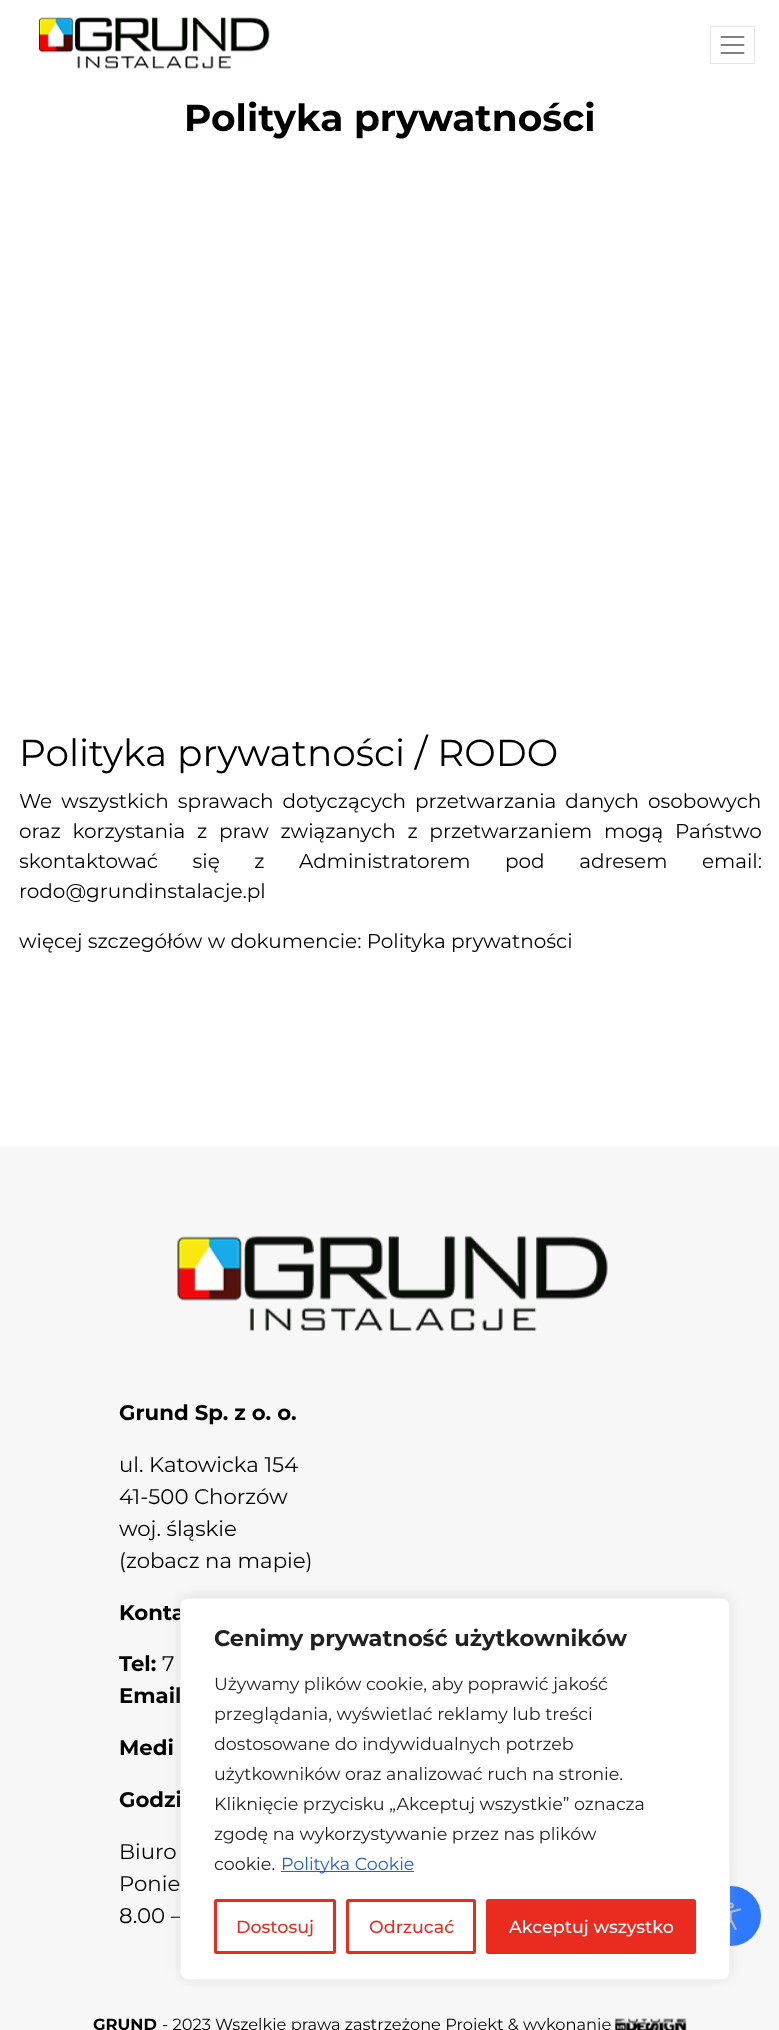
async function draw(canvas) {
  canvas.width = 779
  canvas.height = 2030
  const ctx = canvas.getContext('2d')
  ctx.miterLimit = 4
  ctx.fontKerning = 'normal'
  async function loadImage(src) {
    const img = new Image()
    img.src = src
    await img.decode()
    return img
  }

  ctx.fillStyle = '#fff'
  ctx.fillRect(0, 0, 779, 2030)
  ctx.drawImage(await loadImage('image0.png'), 39, 17, 231, 52)
  ctx.strokeStyle = '#e6e6e6'
  ctx.strokeRect(710.5, 26.5, 44, 37)
  ctx.drawImage(await loadImage('image1.png'), 720, 36, 25, 18)
  ctx.font = 'bold 37.5px Montserrat'
  ctx.fillStyle = '#000'
  ctx.fillText('Polityka prywatności', 184, 131)
  ctx.font = '37.5px Montserrat'
  ctx.fillText('Polityka prywatności / RODO', 19, 766)
  ctx.wordSpacing = '3.75px'
  ctx.font = '20px Montserrat'
  ctx.fillText('We wszystkich sprawach dotyczących przetwarzania danych osobowych', 19, 808)
  ctx.wordSpacing = '6.5px'
  ctx.fillText('oraz korzystania z praw związanych z przetwarzaniem mogą Państwo', 19, 838)
  ctx.wordSpacing = '29.25px'
  ctx.fillText('skontaktować się z Administratorem pod adresem email:', 19, 868)
  ctx.wordSpacing = '0px'
  ctx.fillText('rodo@grundinstalacje.pl', 19, 898)
  ctx.fillText('więcej szczegółów w dokumencie: Polityka prywatności', 19, 948)
  ctx.fillStyle = '#f7f7f7'
  ctx.fillRect(0, 1146, 779, 884)
  ctx.drawImage(await loadImage('image2.png'), 177, 1235, 431, 96)
  ctx.font = 'bold 21.25px Montserrat'
  ctx.fillStyle = '#000'
  ctx.fillText('Grund Sp. z o. o.', 119, 1420)
  ctx.font = '21.25px Montserrat'
  ctx.fillText('ul. Katowicka 154', 119, 1472)
  ctx.fillText('41-500 Chorzów', 119, 1504)
  ctx.fillText('woj. śląskie', 119, 1536)
  ctx.fillText('(zobacz na mapie)', 119, 1568)
  ctx.font = 'bold 21.25px Montserrat'
  ctx.fillText('Konta', 119, 1620)
  ctx.fillText('Tel:', 119, 1671)
  ctx.font = '21.25px Montserrat'
  ctx.fillText('7', 162, 1671)
  ctx.font = 'bold 21.25px Montserrat'
  ctx.fillText('Email', 119, 1703)
  ctx.fillText('Medi', 119, 1755)
  ctx.fillText('Godzi', 119, 1807)
  ctx.font = '21.25px Montserrat'
  ctx.fillText('Biuro', 119, 1859)
  ctx.fillText('Ponie', 119, 1891)
  ctx.fillText('8.00 –', 119, 1923)
  ctx.font = 'bold 16.25px Montserrat'
  ctx.fillText('GRUND', 93, 2030)
  ctx.font = '16.25px Montserrat'
  ctx.fillText('- 2023 Wszelkie prawa zastrzeżone Projekt & wykonanie', 162, 2030)
  ctx.drawImage(await loadImage('image3.png'), 615, 2018, 72, 12)
  ctx.fillStyle = '#2d79ff'
  ctx.beginPath()
  ctx.arc(731, 1916, 30, 0, 2 * Math.PI)
  ctx.fill()
  ctx.drawImage(await loadImage('image4.png'), 730, 1902, 12, 28)
  ctx.fillStyle = '#acabab4d'
  ctx.filter = 'blur(6px)'
  ctx.beginPath()
  ctx.roundRect(180, 1596, 550, 383, 8)
  ctx.fill()
  ctx.filter = 'none'
  ctx.fillStyle = '#fff'
  ctx.beginPath()
  ctx.roundRect(180.5, 1598.5, 549, 381, 7.5)
  ctx.fill()
  ctx.strokeStyle = '#f4f4f4'
  ctx.stroke()
  ctx.font = 'bold 22.5px Montserrat'
  ctx.fillStyle = '#212121'
  ctx.fillText('Cenimy prywatność użytkowników', 214, 1646)
  ctx.font = '17.5px Montserrat'
  ctx.fillText('Używamy plików cookie, aby poprawić jakość', 214, 1690)
  ctx.fillText('przeglądania, wyświetlać reklamy lub treści', 214, 1720)
  ctx.fillText('dostosowane do indywidualnych potrzeb', 214, 1750)
  ctx.fillText('użytkowników oraz analizować ruch na stronie.', 214, 1780)
  ctx.fillText('Kliknięcie przycisku „Akceptuj wszystkie” oznacza', 214, 1810)
  ctx.fillText('zgodę na wykorzystywanie przez nas plików', 214, 1840)
  ctx.fillText('cookie.', 214, 1870)
  ctx.fillStyle = '#1863dc'
  ctx.fillRect(281, 1871, 133, 1)
  ctx.fillText('Polityka Cookie', 281, 1870)
  ctx.beginPath()
  ctx.roundRect(215.5, 1900.5, 119, 52, 1)
  ctx.strokeStyle = '#e92c1f'
  ctx.lineWidth = 3
  ctx.stroke()
  ctx.font = '500 17.5px Montserrat'
  ctx.fillStyle = '#e92c1f'
  ctx.fillText('Dostosuj', 236, 1933)
  ctx.beginPath()
  ctx.roundRect(347.5, 1900.5, 127, 52, 1)
  ctx.stroke()
  ctx.fillText('Odrzucać', 369, 1933)
  ctx.beginPath()
  ctx.roundRect(487.5, 1900.5, 207, 52, 1)
  ctx.fill()
  ctx.stroke()
  ctx.fillStyle = '#fff'
  ctx.fillText('Akceptuj wszystko', 509, 1933)
}

draw(document.querySelector('canvas'))
